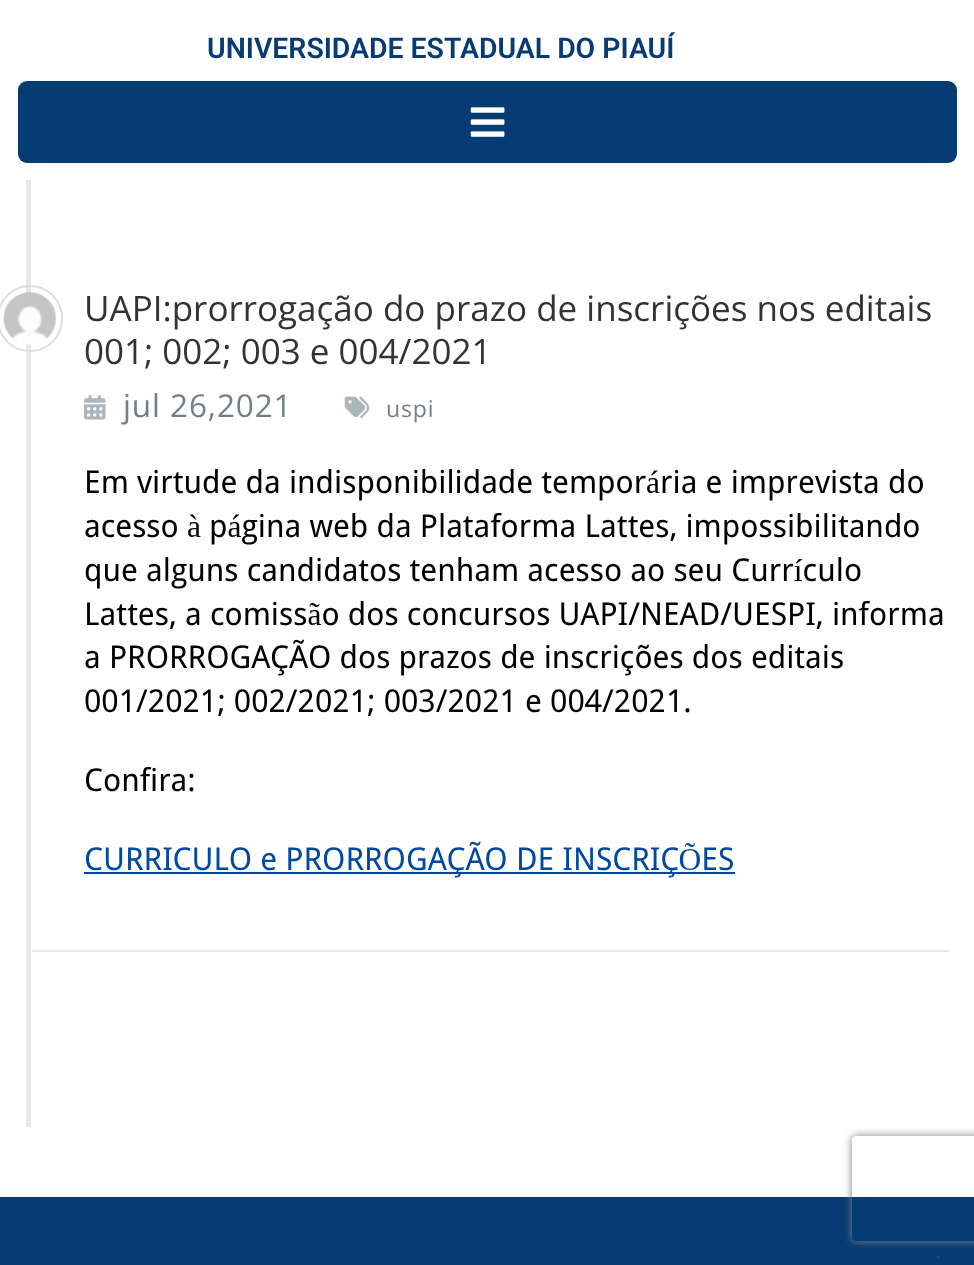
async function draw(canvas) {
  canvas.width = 974
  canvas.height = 1265
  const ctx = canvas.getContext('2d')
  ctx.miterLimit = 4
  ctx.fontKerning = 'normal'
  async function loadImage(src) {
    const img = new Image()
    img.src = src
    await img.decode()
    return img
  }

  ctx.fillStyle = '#fff'
  ctx.fillRect(0, 0, 974, 1265)
  ctx.font = '600 28.4px Roboto'
  ctx.fillStyle = '#063c73'
  ctx.fillText('UNIVERSIDADE ESTADUAL DO PIAUÍ', 207, 58)
  ctx.beginPath()
  ctx.roundRect(18, 81, 939, 82, 9)
  ctx.fill()
  ctx.drawImage(await loadImage('image0.png'), 470, 107, 35, 30)
  ctx.fillStyle = '#e4e8ea'
  ctx.fillRect(26, 180, 5, 947)
  ctx.fillRect(32, 950, 917, 2)
  ctx.beginPath()
  ctx.roundRect(-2, 286, 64, 65, 32)
  ctx.strokeStyle = '#ddd'
  ctx.lineWidth = 2
  ctx.stroke()
  ctx.drawImage(await loadImage('image1.png'), 3, 292, 54, 53)
  ctx.font = '35px Open Sans'
  ctx.fillStyle = '#333'
  ctx.fillText('UAPI:prorrogação do prazo de inscrições nos editais', 84, 321)
  ctx.fillText('001; 002; 003 e 004/2021', 84, 364)
  ctx.drawImage(await loadImage('image2.png'), 84, 395, 22, 25)
  ctx.letterSpacing = '0.9px'
  ctx.font = '31.5px Open Sans'
  ctx.fillStyle = '#737f85'
  ctx.fillText('jul 26,2021', 123, 417)
  ctx.drawImage(await loadImage('image3.png'), 344, 396, 26, 22)
  ctx.font = '23px Open Sans'
  ctx.fillText('uspi', 386, 417)
  ctx.letterSpacing = '0px'
  ctx.font = '31.5px Droid Sans'
  ctx.fillStyle = '#000'
  ctx.fillText('Em virtude da indisponibilidade temporária e imprevista do', 84, 493)
  ctx.fillText('acesso à página web da Plataforma Lattes, impossibilitando', 84, 537)
  ctx.fillText('que alguns candidatos tenham acesso ao seu Currículo', 84, 581)
  ctx.fillText('Lattes, a comissão dos concursos UAPI/NEAD/UESPI, informa', 84, 625)
  ctx.fillText('a PRORROGAÇÃO dos prazos de inscrições dos editais', 84, 668)
  ctx.fillText('001/2021; 002/2021; 003/2021 e 004/2021.', 84, 712)
  ctx.fillText('Confira:', 84, 791)
  ctx.fillStyle = '#0148a1'
  ctx.fillRect(84, 872, 651, 2)
  ctx.fillText('CURRICULO e PRORROGAÇÃO DE INSCRIÇÕES', 84, 870)
  ctx.fillStyle = '#063c73'
  ctx.fillRect(0, 1197, 974, 68)
  ctx.drawImage(await loadImage('image4.png'), 937, 1254, 2, 4)
  ctx.save()
  ctx.beginPath()
  ctx.moveTo(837, 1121)
  ctx.lineTo(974, 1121)
  ctx.lineTo(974, 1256)
  ctx.lineTo(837, 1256)
  ctx.closePath()
  ctx.moveTo(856, 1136)
  ctx.lineTo(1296, 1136)
  ctx.bezierCurveTo(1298, 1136, 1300, 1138, 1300, 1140)
  ctx.lineTo(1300, 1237)
  ctx.bezierCurveTo(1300, 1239, 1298, 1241, 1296, 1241)
  ctx.lineTo(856, 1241)
  ctx.bezierCurveTo(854, 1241, 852, 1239, 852, 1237)
  ctx.lineTo(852, 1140)
  ctx.bezierCurveTo(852, 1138, 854, 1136, 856, 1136)
  ctx.closePath()
  ctx.clip('evenodd')
  ctx.fillStyle = '#808080'
  ctx.filter = 'blur(4.5px)'
  ctx.beginPath()
  ctx.roundRect(852, 1136, 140, 105, 4)
  ctx.fill()
  ctx.filter = 'none'
  ctx.restore()
}

draw(document.querySelector('canvas'))
